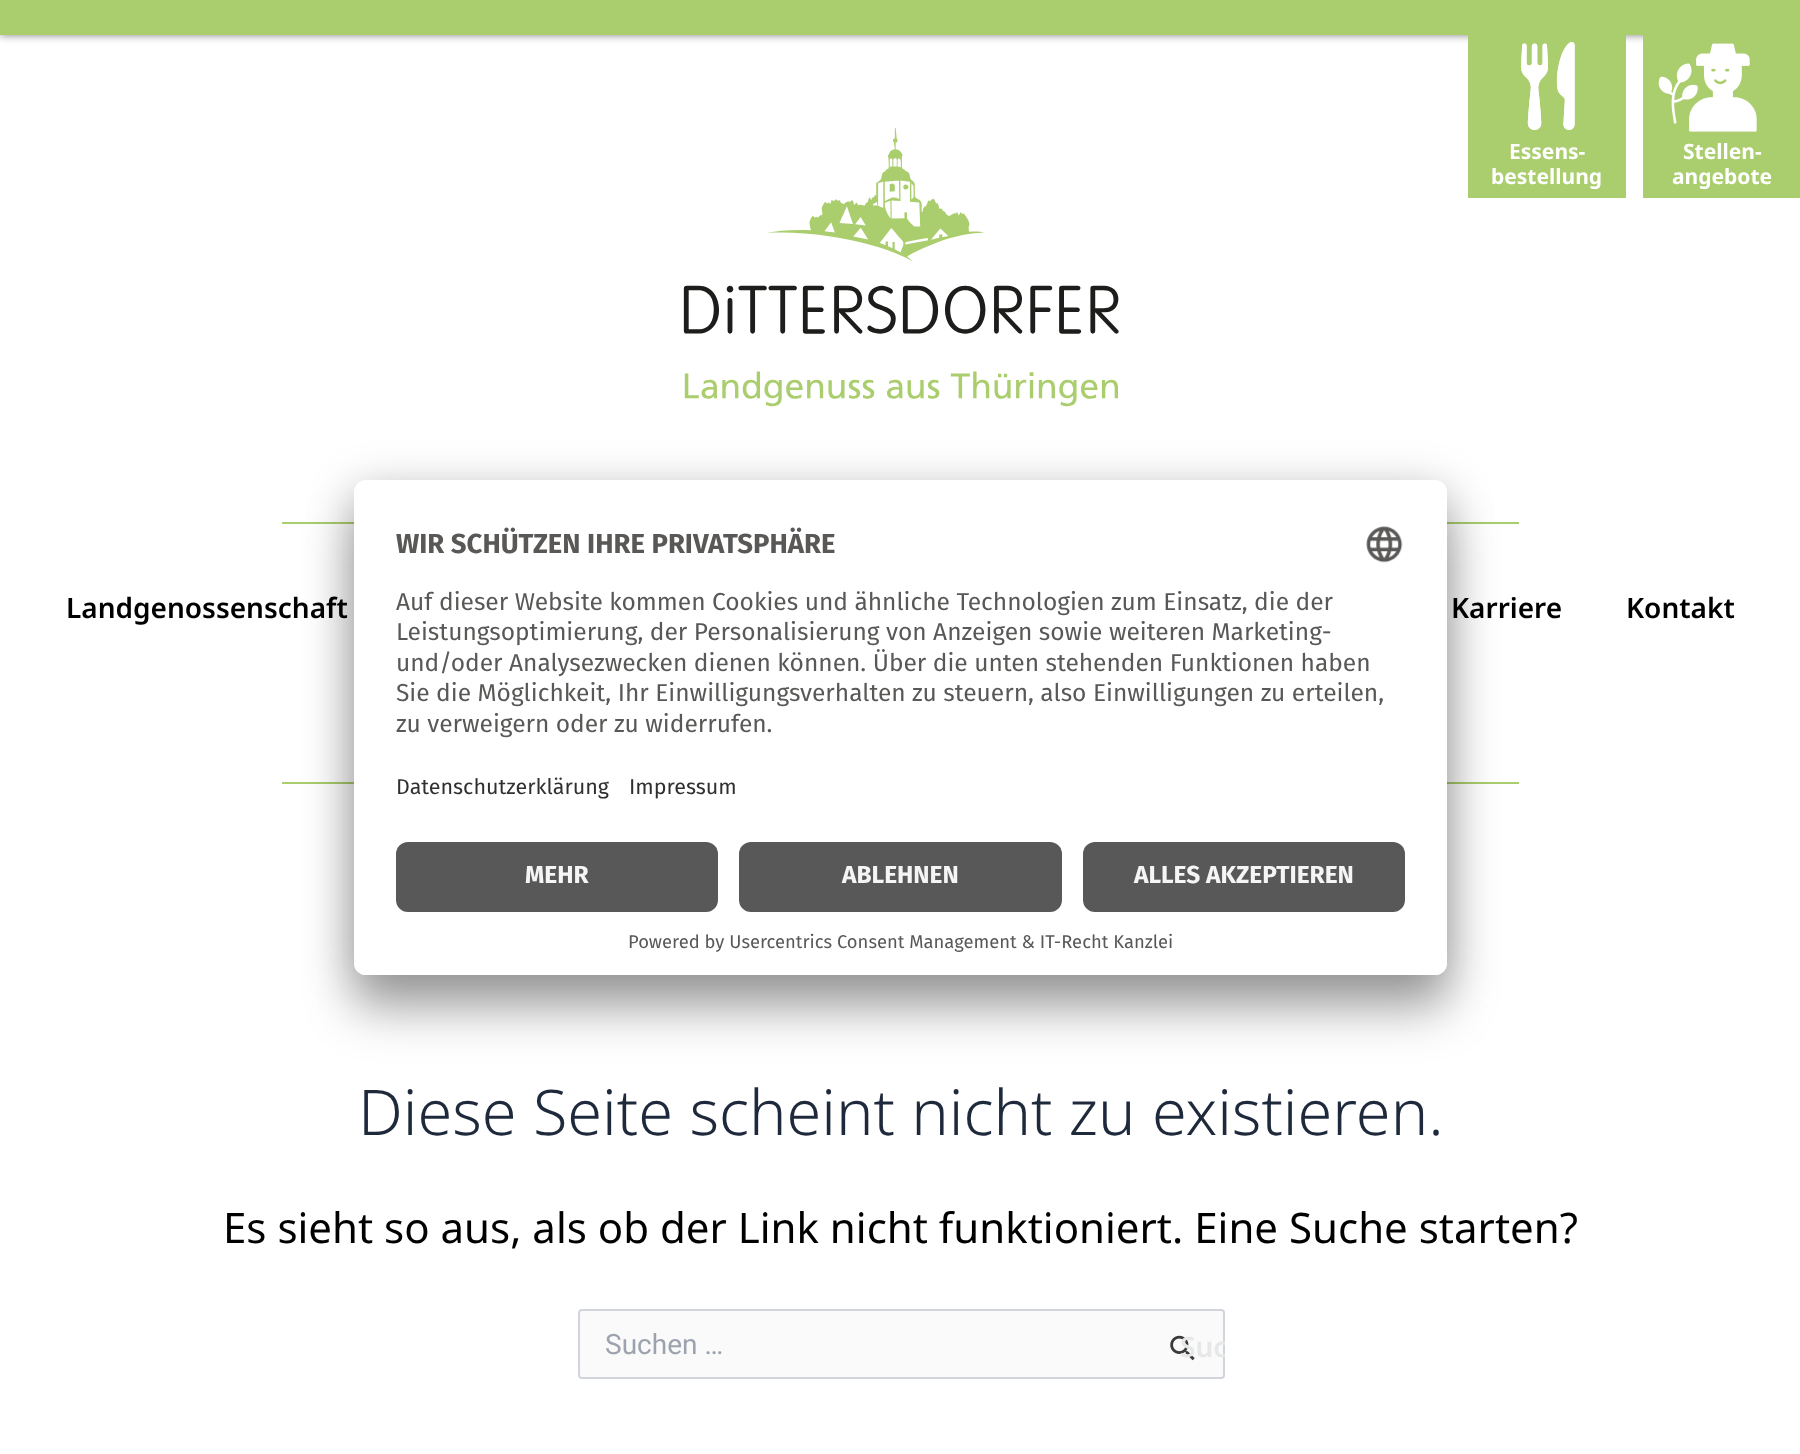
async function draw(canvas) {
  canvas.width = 1800
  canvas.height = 1454
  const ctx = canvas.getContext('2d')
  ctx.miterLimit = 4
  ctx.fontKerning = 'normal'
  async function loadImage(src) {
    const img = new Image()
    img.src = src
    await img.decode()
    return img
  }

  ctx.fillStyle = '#fff'
  ctx.fillRect(0, 0, 1800, 1454)
  ctx.fillStyle = '#00000080'
  ctx.filter = 'blur(4.5px)'
  ctx.beginPath()
  ctx.rect(0, 0, 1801, 35)
  ctx.fill()
  ctx.filter = 'none'
  ctx.fillStyle = '#aacd6d'
  ctx.fillRect(0, 0, 1800, 35)
  ctx.drawImage(await loadImage('image0.png'), 683, 128, 436, 279)
  ctx.fillRect(1468, 35, 158, 163)
  ctx.drawImage(await loadImage('image1.png'), 1521, 42, 54, 88)
  ctx.font = 'bold 21px Noto Sans'
  ctx.fillStyle = '#fff'
  ctx.fillText('Essens-', 1509, 159)
  ctx.fillText('bestellung', 1491, 184)
  ctx.fillStyle = '#aacd6d'
  ctx.fillRect(1643, 35, 157, 163)
  ctx.drawImage(await loadImage('image2.png'), 1658, 43, 99, 89)
  ctx.fillStyle = '#fff'
  ctx.fillText('Stellen-', 1683, 159)
  ctx.fillText('angebote', 1672, 184)
  ctx.fillStyle = '#aacd6d'
  ctx.fillRect(282, 522, 1237, 2)
  ctx.font = '600 28px Noto Sans'
  ctx.fillStyle = '#000'
  ctx.fillText('Landgenossenschaft', 66, 618)
  ctx.fillText('Karriere', 1451, 618)
  ctx.fillText('Kontakt', 1626, 618)
  ctx.fillStyle = '#aacd6d'
  ctx.fillRect(282, 782, 1237, 2)
  ctx.font = '300 63px Noto Sans'
  ctx.fillStyle = '#1e293b'
  ctx.fillText('Diese Seite scheint nicht zu existieren.', 358, 1135)
  ctx.font = '42px Noto Sans'
  ctx.fillStyle = '#000'
  ctx.fillText('Es sieht so aus, als ob der Link nicht funktioniert. Eine Suche starten?', 223, 1243)
  ctx.fillStyle = '#fafafa'
  ctx.beginPath()
  ctx.roundRect(579, 1310, 645, 68, 3)
  ctx.fill()
  ctx.strokeStyle = '#d1d5db'
  ctx.lineWidth = 2
  ctx.stroke()
  ctx.font = '28px Roboto'
  ctx.fillStyle = '#9ca3af'
  ctx.fillText('Suchen …', 605, 1354)
  ctx.drawImage(await loadImage('image3.png'), 1170, 1335, 25, 26)
  ctx.save()
  ctx.beginPath()
  ctx.roundRect(1146, 1309, 79, 74, 4)
  ctx.clip()
  ctx.font = '600 28px Noto Sans'
  ctx.fillStyle = '#e6e7e7'
  ctx.fillText('Suc', 1180, 1357)
  ctx.restore()
  ctx.fillStyle = '#0000004d'
  ctx.filter = 'blur(24.5px)'
  ctx.beginPath()
  ctx.roundRect(354, 515, 1093, 495, 12)
  ctx.fill()
  ctx.filter = 'none'
  ctx.fillStyle = '#00000038'
  ctx.filter = 'blur(23px)'
  ctx.beginPath()
  ctx.roundRect(354, 488, 1093, 496, 12)
  ctx.fill()
  ctx.filter = 'none'
  ctx.fillStyle = '#fff'
  ctx.beginPath()
  ctx.roundRect(354, 480, 1093, 495, 12)
  ctx.fill()
  ctx.font = 'bold 27.5px Fira Sans'
  ctx.fillStyle = '#595857'
  ctx.fillText('WIR SCHÜTZEN IHRE PRIVATSPHÄRE', 396, 553)
  ctx.drawImage(await loadImage('image4.png'), 1366, 526, 37, 37)
  ctx.font = '24.5px Fira Sans'
  ctx.fillText('Auf dieser Website kommen Cookies und ähnliche Technologien zum Einsatz, die der', 396, 610)
  ctx.fillText('Leistungsoptimierung, der Personalisierung von Anzeigen sowie weiteren Marketing-', 396, 640)
  ctx.fillText('und/oder Analysezwecken dienen können. Über die unten stehenden Funktionen haben', 396, 671)
  ctx.fillText('Sie die Möglichkeit, Ihr Einwilligungsverhalten zu steuern, also Einwilligungen zu erteilen,', 396, 701)
  ctx.fillText('zu verweigern oder zu widerrufen.', 396, 732)
  ctx.font = '21.5px Fira Sans'
  ctx.fillStyle = '#303030'
  ctx.fillText('Datenschutzerklärung', 396, 794)
  ctx.fillText('Impressum', 629, 794)
  ctx.fillStyle = '#fff'
  ctx.beginPath()
  ctx.roundRect(354, 828, 1093, 147, [0, 0, 12, 12])
  ctx.fill()
  ctx.fillStyle = '#585858'
  ctx.beginPath()
  ctx.roundRect(396, 842, 322, 70, 12)
  ctx.fill()
  ctx.font = 'bold 24.5px Fira Sans'
  ctx.fillStyle = '#f5f5f5'
  ctx.fillText('MEHR', 525, 883)
  ctx.fillStyle = '#585858'
  ctx.beginPath()
  ctx.roundRect(739, 842, 323, 70, 12)
  ctx.fill()
  ctx.fillStyle = '#f5f5f5'
  ctx.fillText('ABLEHNEN', 842, 883)
  ctx.fillStyle = '#585858'
  ctx.beginPath()
  ctx.roundRect(1083, 842, 322, 70, 12)
  ctx.fill()
  ctx.fillStyle = '#f5f5f5'
  ctx.fillText('ALLES AKZEPTIEREN', 1134, 883)
  ctx.font = '18.4px Fira Sans'
  ctx.fillStyle = '#595857'
  ctx.fillText('Powered by Usercentrics Consent Management & IT-Recht Kanzlei', 628, 948)
}

draw(document.querySelector('canvas'))
